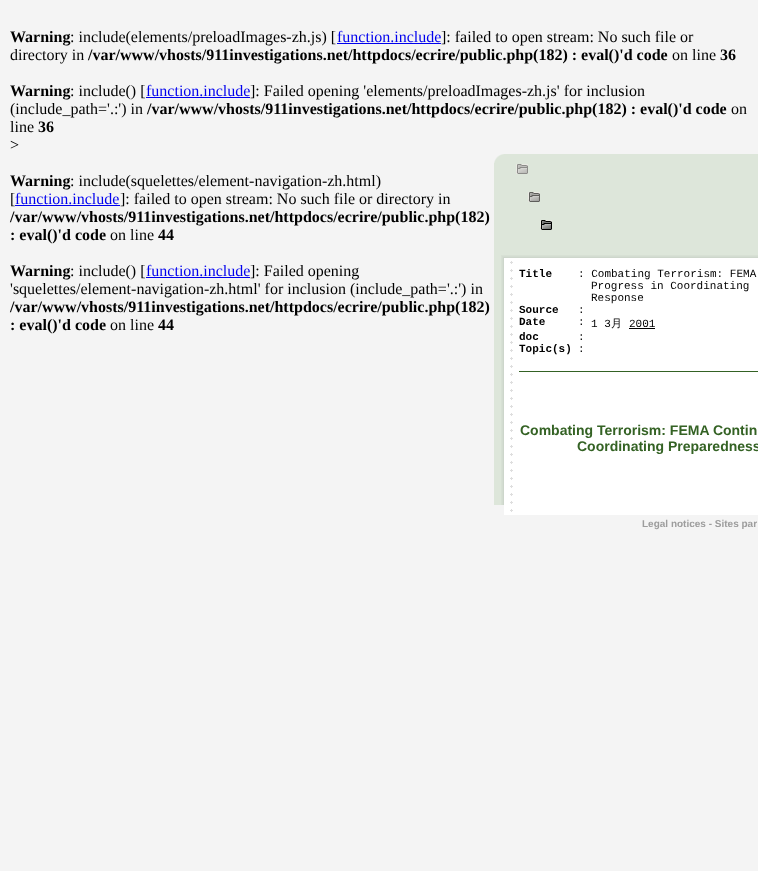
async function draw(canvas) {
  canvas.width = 758
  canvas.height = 871
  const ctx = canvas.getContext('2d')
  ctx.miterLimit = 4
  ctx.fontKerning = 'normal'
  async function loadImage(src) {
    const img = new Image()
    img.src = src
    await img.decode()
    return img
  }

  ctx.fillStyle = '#f4f4f4'
  ctx.fillRect(0, 0, 758, 871)
  ctx.font = 'bold 16px Liberation Serif'
  ctx.fillStyle = '#000'
  ctx.fillText('Warning', 10, 42)
  ctx.font = '16px Liberation Serif'
  ctx.fillText(': include(elements/preloadImages-zh.js) [', 70, 42)
  ctx.fillStyle = '#00e'
  ctx.fillText('function.include', 337, 42)
  ctx.fillRect(337, 43, 104, 1)
  ctx.fillStyle = '#000'
  ctx.fillText(']: failed to open stream: No such file or', 441, 42)
  ctx.fillText('directory in', 10, 60)
  ctx.font = 'bold 16px Liberation Serif'
  ctx.fillText('/var/www/vhosts/911investigations.net/httpdocs/ecrire/public.php(182) : eval()\'d code', 88, 60)
  ctx.font = '16px Liberation Serif'
  ctx.fillText('on line', 672, 60)
  ctx.font = 'bold 16px Liberation Serif'
  ctx.fillText('36', 720, 60)
  ctx.fillText('Warning', 10, 96)
  ctx.font = '16px Liberation Serif'
  ctx.fillText(': include() [', 70, 96)
  ctx.fillStyle = '#00e'
  ctx.fillText('function.include', 146, 96)
  ctx.fillRect(146, 97, 104, 1)
  ctx.fillStyle = '#000'
  ctx.fillText(']: Failed opening \'elements/preloadImages-zh.js\' for inclusion', 250, 96)
  ctx.fillText('(include_path=\'.:\') in', 10, 114)
  ctx.font = 'bold 16px Liberation Serif'
  ctx.fillText('/var/www/vhosts/911investigations.net/httpdocs/ecrire/public.php(182) : eval()\'d code', 147, 114)
  ctx.font = '16px Liberation Serif'
  ctx.fillText('on', 731, 114)
  ctx.fillText('line', 10, 132)
  ctx.font = 'bold 16px Liberation Serif'
  ctx.fillText('36', 38, 132)
  ctx.font = '16px Liberation Serif'
  ctx.fillText('>', 10, 150)
  ctx.font = 'bold 16px Liberation Serif'
  ctx.fillText('Warning', 10, 186)
  ctx.font = '16px Liberation Serif'
  ctx.fillText(': include(squelettes/element-navigation-zh.html)', 70, 186)
  ctx.fillText('[', 10, 204)
  ctx.fillStyle = '#00e'
  ctx.fillText('function.include', 15, 204)
  ctx.fillRect(15, 205, 105, 1)
  ctx.fillStyle = '#000'
  ctx.fillText(']: failed to open stream: No such file or directory in', 120, 204)
  ctx.font = 'bold 16px Liberation Serif'
  ctx.fillText('/var/www/vhosts/911investigations.net/httpdocs/ecrire/public.php(182)', 10, 222)
  ctx.fillText(': eval()\'d code', 10, 240)
  ctx.font = '16px Liberation Serif'
  ctx.fillText('on line', 110, 240)
  ctx.font = 'bold 16px Liberation Serif'
  ctx.fillText('44', 158, 240)
  ctx.fillText('Warning', 10, 276)
  ctx.font = '16px Liberation Serif'
  ctx.fillText(': include() [', 70, 276)
  ctx.fillStyle = '#00e'
  ctx.fillText('function.include', 146, 276)
  ctx.fillRect(146, 277, 104, 1)
  ctx.fillStyle = '#000'
  ctx.fillText(']: Failed opening', 250, 276)
  ctx.fillText('\'squelettes/element-navigation-zh.html\' for inclusion (include_path=\'.:\') in', 10, 294)
  ctx.font = 'bold 16px Liberation Serif'
  ctx.fillText('/var/www/vhosts/911investigations.net/httpdocs/ecrire/public.php(182)', 10, 312)
  ctx.fillText(': eval()\'d code', 10, 330)
  ctx.font = '16px Liberation Serif'
  ctx.fillText('on line', 110, 330)
  ctx.font = 'bold 16px Liberation Serif'
  ctx.fillText('44', 158, 330)
  ctx.drawImage(await loadImage('image0.png'), 494, 154, 10, 10)
  ctx.fillStyle = '#dde6da'
  ctx.fillRect(504, 154, 254, 10)
  ctx.fillRect(494, 164, 264, 84)
  ctx.drawImage(await loadImage('image1.png'), 516, 164, 12, 10)
  ctx.drawImage(await loadImage('image2.png'), 528, 192, 12, 10)
  ctx.drawImage(await loadImage('image3.png'), 540, 220, 12, 10)
  ctx.drawImage(await loadImage('image4.png'), 494, 248, 10, 10)
  ctx.drawImage(await loadImage('image5.png'), 504, 248, 254, 10)
  ctx.drawImage(await loadImage('image6.png'), 494, 258, 10, 247)
  ctx.fillStyle = '#fff'
  ctx.fillRect(504, 258, 254, 257)
  ctx.drawImage(await loadImage('image7.png'), 510, 261, 3, 251)
  ctx.font = 'bold 11px Liberation Mono'
  ctx.fillStyle = '#000'
  ctx.fillText('Title', 519, 277)
  ctx.font = '11px Liberation Mono'
  ctx.fillText(': Combating Terrorism: FEMA', 578, 277)
  ctx.fillText('Progress in Coordinating', 591, 289)
  ctx.fillText('Response', 591, 301)
  ctx.font = 'bold 11px Liberation Mono'
  ctx.fillText('Source', 519, 313)
  ctx.font = '11px Liberation Mono'
  ctx.fillText(':', 578, 313)
  ctx.font = 'bold 11px Liberation Mono'
  ctx.fillText('Date', 519, 325)
  ctx.font = '11px Liberation Mono'
  ctx.fillText(':', 578, 325)
  ctx.fillText('1 3', 591, 327)
  ctx.font = '500 11px WenQuanYi Zen Hei'
  ctx.fillText('月', 611, 327)
  ctx.font = '11px Liberation Mono'
  ctx.fillText('2001', 629, 327)
  ctx.fillRect(629, 328, 26, 1)
  ctx.font = 'bold 11px Liberation Mono'
  ctx.fillText('doc', 519, 340)
  ctx.font = '11px Liberation Mono'
  ctx.fillText(':', 578, 340)
  ctx.font = 'bold 11px Liberation Mono'
  ctx.fillText('Topic(s)', 519, 352)
  ctx.font = '11px Liberation Mono'
  ctx.fillText(':', 578, 352)
  ctx.fillStyle = '#346224'
  ctx.fillRect(519, 371, 239, 1)
  ctx.font = 'bold 14px Liberation Sans'
  ctx.fillText('Combating Terrorism: FEMA Contin', 520, 435)
  ctx.fillText('Coordinating Preparedness', 577, 451)
  ctx.font = 'bold 10px Liberation Sans'
  ctx.fillStyle = '#9d9d9d'
  ctx.fillText('Legal notices - Sites par', 642, 527)
}

draw(document.querySelector('canvas'))
